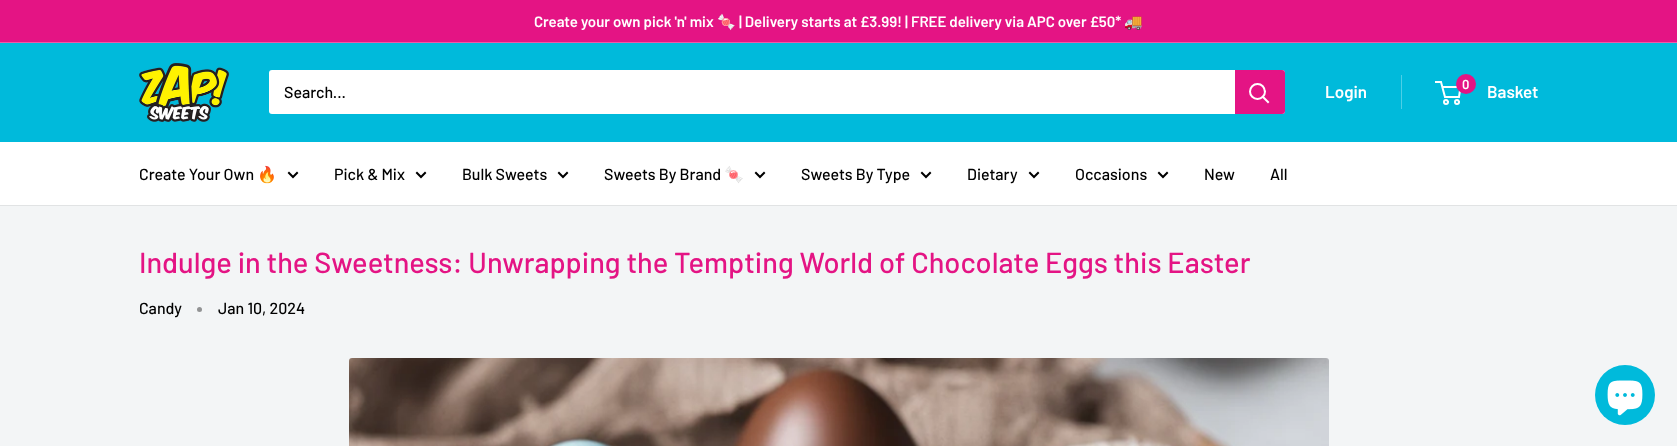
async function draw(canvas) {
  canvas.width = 1677
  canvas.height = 446
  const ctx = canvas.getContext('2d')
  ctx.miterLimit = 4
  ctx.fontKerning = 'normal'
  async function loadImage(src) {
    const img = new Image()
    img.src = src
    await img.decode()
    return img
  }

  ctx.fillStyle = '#f3f5f6'
  ctx.fillRect(0, 0, 1677, 446)
  ctx.fillStyle = '#e41484'
  ctx.fillRect(0, 0, 1677, 42)
  ctx.fillStyle = '#ec5ba9'
  ctx.fillRect(0, 42, 1677, 1)
  ctx.font = '600 15px Barlow'
  ctx.fillStyle = '#fff'
  ctx.fillText('Create your own pick \'n\' mix', 534, 27)
  ctx.font = 'bold 15px Noto Color Emoji'
  ctx.fillText('🍬', 717, 27)
  ctx.font = '600 15px Barlow'
  ctx.fillText('| Delivery starts at £3.99! | FREE delivery via APC over £50*', 739, 27)
  ctx.font = 'bold 15px Noto Color Emoji'
  ctx.fillText('🚚', 1124, 27)
  ctx.fillStyle = '#00badb'
  ctx.fillRect(0, 43, 1677, 99)
  ctx.drawImage(await loadImage('image0.png'), 139, 63, 90, 59)
  ctx.fillStyle = '#fff'
  ctx.beginPath()
  ctx.roundRect(269, 70, 1016, 44, 3)
  ctx.fill()
  ctx.font = '500 16px Barlow'
  ctx.fillStyle = '#000'
  ctx.fillText('Search...', 284, 98)
  ctx.fillStyle = '#e41484'
  ctx.beginPath()
  ctx.roundRect(1235, 70, 50, 44, [0, 3, 3, 0])
  ctx.fill()
  ctx.beginPath()
  ctx.moveTo(1268, 102)
  ctx.lineTo(1263, 97)
  ctx.strokeStyle = '#fff'
  ctx.lineWidth = 2
  ctx.lineCap = 'square'
  ctx.stroke()
  ctx.beginPath()
  ctx.arc(1257.5, 91.5, 7.5, 0, 2 * Math.PI)
  ctx.stroke()
  ctx.font = '600 17px Barlow'
  ctx.fillStyle = '#fff'
  ctx.fillText('Login', 1325, 98)
  ctx.fillStyle = '#4dcfe6'
  ctx.fillRect(1401, 75, 1, 34)
  ctx.beginPath()
  ctx.arc(1446, 102, 2, 0, 2 * Math.PI)
  ctx.stroke()
  ctx.beginPath()
  ctx.arc(1457, 102, 2, 0, 2 * Math.PI)
  ctx.stroke()
  ctx.beginPath()
  ctx.moveTo(1442.5, 87)
  ctx.lineTo(1460.5, 87)
  ctx.lineTo(1459, 97)
  ctx.lineTo(1445, 97)
  ctx.lineTo(1441, 82)
  ctx.lineTo(1435, 82)
  ctx.lineCap = 'butt'
  ctx.stroke()
  ctx.fillStyle = '#e41484'
  ctx.beginPath()
  ctx.arc(1466, 84, 10, 0, 2 * Math.PI)
  ctx.fill()
  ctx.font = '600 13px Barlow'
  ctx.fillStyle = '#fff'
  ctx.fillText('0', 1462, 89)
  ctx.font = '600 17px Barlow'
  ctx.fillText('Basket', 1487, 98)
  ctx.fillRect(0, 142, 1677, 63)
  ctx.fillStyle = '#e1e3e4'
  ctx.fillRect(0, 205, 1677, 1)
  ctx.font = '500 16px Barlow'
  ctx.fillStyle = '#000'
  ctx.fillText('Create Your Own', 139, 180)
  ctx.font = '16px Noto Color Emoji'
  ctx.fillText('🔥', 257, 180)
  ctx.beginPath()
  ctx.moveTo(297, 173)
  ctx.lineTo(293, 177)
  ctx.lineTo(289, 173)
  ctx.strokeStyle = '#000'
  ctx.lineCap = 'square'
  ctx.stroke()
  ctx.font = '500 16px Barlow'
  ctx.fillText('Pick & Mix', 334, 180)
  ctx.beginPath()
  ctx.moveTo(425, 173)
  ctx.lineTo(421, 177)
  ctx.lineTo(417, 173)
  ctx.stroke()
  ctx.fillText('Bulk Sweets', 462, 180)
  ctx.beginPath()
  ctx.moveTo(567, 173)
  ctx.lineTo(563, 177)
  ctx.lineTo(559, 173)
  ctx.stroke()
  ctx.fillText('Sweets By Brand', 604, 180)
  ctx.font = '16px Noto Color Emoji'
  ctx.fillText('🍬', 724, 180)
  ctx.beginPath()
  ctx.moveTo(764, 173)
  ctx.lineTo(760, 177)
  ctx.lineTo(756, 173)
  ctx.stroke()
  ctx.font = '500 16px Barlow'
  ctx.fillText('Sweets By Type', 801, 180)
  ctx.beginPath()
  ctx.moveTo(930, 173)
  ctx.lineTo(926, 177)
  ctx.lineTo(922, 173)
  ctx.stroke()
  ctx.fillText('Dietary', 967, 180)
  ctx.beginPath()
  ctx.moveTo(1038, 173)
  ctx.lineTo(1034, 177)
  ctx.lineTo(1030, 173)
  ctx.stroke()
  ctx.fillText('Occasions', 1075, 180)
  ctx.beginPath()
  ctx.moveTo(1167, 173)
  ctx.lineTo(1163, 177)
  ctx.lineTo(1159, 173)
  ctx.stroke()
  ctx.fillText('New', 1204, 180)
  ctx.fillText('All', 1270, 180)
  ctx.font = '500 29px Barlow'
  ctx.fillStyle = '#e41484'
  ctx.fillText('Indulge in the Sweetness: Unwrapping the Tempting World of Chocolate Eggs this Easter', 139, 273)
  ctx.font = '500 16px Barlow'
  ctx.fillStyle = '#000'
  ctx.fillText('Candy', 139, 314)
  ctx.fillStyle = '#929394'
  ctx.beginPath()
  ctx.arc(199.5, 309.5, 2.5, 0, 2 * Math.PI)
  ctx.fill()
  ctx.fillStyle = '#000'
  ctx.fillText('Jan 10, 2024', 218, 314)
  ctx.drawImage(await loadImage('image1.png'), 349, 358, 980, 88)
  ctx.fillStyle = '#00badb'
  ctx.beginPath()
  ctx.arc(1625, 395, 30, 0, 2 * Math.PI)
  ctx.fill()
  ctx.drawImage(await loadImage('image2.png'), 1607, 380, 36, 36)
}

draw(document.querySelector('canvas'))
